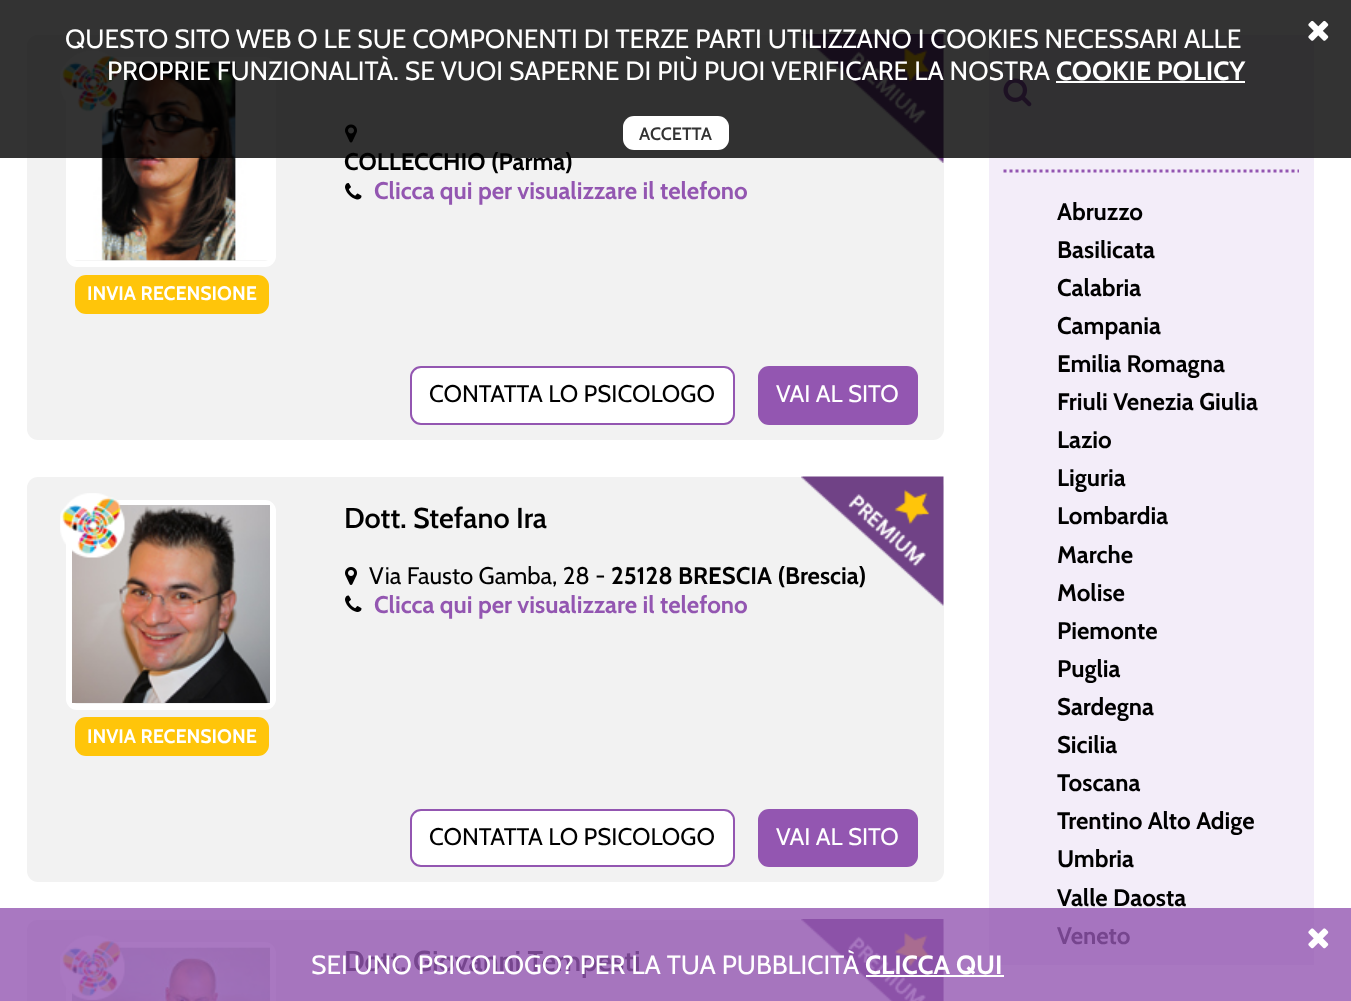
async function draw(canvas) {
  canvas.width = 1351
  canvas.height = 1001
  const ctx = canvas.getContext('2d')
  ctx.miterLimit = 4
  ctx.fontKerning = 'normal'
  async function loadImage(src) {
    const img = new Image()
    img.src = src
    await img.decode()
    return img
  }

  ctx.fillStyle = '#fff'
  ctx.fillRect(0, 0, 1351, 1001)
  ctx.fillStyle = '#a978c1'
  ctx.fillRect(0, 908, 1351, 93)
  ctx.fillStyle = '#f2f2f2'
  ctx.beginPath()
  ctx.roundRect(27, 35, 917, 405, 11)
  ctx.fill()
  ctx.drawImage(await loadImage('image1.png'), 801, 34, 143, 129)
  ctx.drawImage(await loadImage('image2.png'), 345, 124, 12, 19)
  ctx.font = 'bold 24px Cabin'
  ctx.fillStyle = '#000'
  ctx.fillText('COLLECCHIO (Parma)', 344, 170)
  ctx.beginPath()
  ctx.roundRect(69, 60, 204, 204, 8)
  ctx.strokeStyle = '#fff'
  ctx.lineWidth = 6
  ctx.stroke()
  ctx.drawImage(await loadImage('image5.png'), 72, 62, 198, 199)
  ctx.drawImage(await loadImage('image4.png'), 60, 50, 65, 64)
  ctx.fillStyle = '#f3edf9'
  ctx.fillRect(989, 35, 325, 873)
  ctx.drawImage(await loadImage('image14.png'), 1003, 78, 29, 29)
  ctx.fillStyle = '#000000cc'
  ctx.fillRect(0, 0, 1351, 158)
  ctx.font = '26.4px Cabin'
  ctx.fillStyle = '#fff'
  ctx.fillText('QUESTO SITO WEB O LE SUE COMPONENTI DI TERZE PARTI UTILIZZANO I COOKIES NECESSARI ALLE', 65, 48)
  ctx.fillText('PROPRIE FUNZIONALITÀ. SE VUOI SAPERNE DI PIÙ PUOI VERIFICARE LA NOSTRA', 107, 80)
  ctx.font = 'bold 26.4px Cabin'
  ctx.fillText('COOKIE POLICY', 1056, 80)
  ctx.fillRect(1056, 81, 189, 2)
  ctx.drawImage(await loadImage('image0.png'), 1308, 20, 21, 21)
  ctx.beginPath()
  ctx.roundRect(623, 116, 106, 34, 11)
  ctx.fill()
  ctx.font = '600 18px Cabin'
  ctx.fillStyle = '#333'
  ctx.fillText('ACCETTA', 639, 140)
  ctx.drawImage(await loadImage('image3.png'), 345, 183, 17, 17)
  ctx.font = 'bold 24px Cabin'
  ctx.fillStyle = '#9356b1'
  ctx.fillText('Clicca qui per visualizzare il telefono', 374, 199)
  ctx.fillStyle = '#ffc50a'
  ctx.beginPath()
  ctx.roundRect(76, 276, 192, 37, 10)
  ctx.fill()
  ctx.strokeStyle = '#ffc50a'
  ctx.lineWidth = 2
  ctx.stroke()
  ctx.font = 'bold 19.5px Cabin'
  ctx.fillStyle = '#fff'
  ctx.fillText('INVIA RECENSIONE', 87, 300)
  ctx.beginPath()
  ctx.roundRect(411, 367, 323, 57, 10)
  ctx.fill()
  ctx.strokeStyle = '#9356b1'
  ctx.stroke()
  ctx.font = '24px Cabin'
  ctx.fillStyle = '#000'
  ctx.fillText('CONTATTA LO PSICOLOGO', 429, 402)
  ctx.fillStyle = '#9356b1'
  ctx.beginPath()
  ctx.roundRect(758, 366, 160, 59, 11)
  ctx.fill()
  ctx.fillStyle = '#fff'
  ctx.fillText('VAI AL SITO', 776, 402)
  ctx.fillStyle = '#f2f2f2'
  ctx.beginPath()
  ctx.roundRect(27, 477, 917, 405, 11)
  ctx.fill()
  ctx.font = '600 28.75px Cabin'
  ctx.fillStyle = '#000'
  ctx.fillText('Dott. Stefano Ira', 344, 528)
  ctx.drawImage(await loadImage('image6.png'), 345, 567, 12, 18)
  ctx.font = '24px Cabin'
  ctx.fillText('Via Fausto Gamba, 28 -', 369, 584)
  ctx.font = 'bold 24px Cabin'
  ctx.fillText('25128 BRESCIA (Brescia)', 611, 584)
  ctx.drawImage(await loadImage('image7.png'), 345, 595, 17, 17)
  ctx.fillStyle = '#9356b1'
  ctx.fillText('Clicca qui per visualizzare il telefono', 374, 613)
  ctx.drawImage(await loadImage('image8.png'), 801, 476, 143, 130)
  ctx.beginPath()
  ctx.roundRect(69, 503, 204, 204, 8)
  ctx.strokeStyle = '#fff'
  ctx.lineWidth = 6
  ctx.stroke()
  ctx.drawImage(await loadImage('image10.png'), 72, 505, 198, 198)
  ctx.drawImage(await loadImage('image9.png'), 60, 493, 65, 65)
  ctx.fillStyle = '#ffc50a'
  ctx.beginPath()
  ctx.roundRect(76, 718, 192, 37, 10)
  ctx.fill()
  ctx.strokeStyle = '#ffc50a'
  ctx.lineWidth = 2
  ctx.stroke()
  ctx.font = 'bold 19.5px Cabin'
  ctx.fillStyle = '#fff'
  ctx.fillText('INVIA RECENSIONE', 87, 743)
  ctx.beginPath()
  ctx.roundRect(411, 810, 323, 56, 10)
  ctx.fill()
  ctx.strokeStyle = '#9356b1'
  ctx.stroke()
  ctx.font = '24px Cabin'
  ctx.fillStyle = '#000'
  ctx.fillText('CONTATTA LO PSICOLOGO', 429, 845)
  ctx.fillStyle = '#9356b1'
  ctx.beginPath()
  ctx.roundRect(758, 809, 160, 58, 11)
  ctx.fill()
  ctx.fillStyle = '#fff'
  ctx.fillText('VAI AL SITO', 776, 845)
  ctx.fillStyle = '#a675be'
  ctx.beginPath()
  ctx.roundRect(27, 920, 917, 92, 11)
  ctx.fill()
  ctx.beginPath()
  ctx.roundRect(69, 945, 204, 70, 8)
  ctx.strokeStyle = '#a978c1'
  ctx.lineWidth = 6
  ctx.stroke()
  ctx.drawImage(await loadImage('image12.png'), 72, 947, 198, 54)
  ctx.drawImage(await loadImage('image11.png'), 60, 935, 65, 66)
  ctx.font = '600 28.75px Cabin'
  ctx.fillStyle = '#76458e'
  ctx.fillText('Dott. Giovanni Tempesti', 344, 971)
  ctx.drawImage(await loadImage('image13.png'), 801, 919, 143, 82)
  ctx.fillStyle = '#a674bf'
  ctx.fillRect(989, 908, 325, 57)
  ctx.beginPath()
  ctx.moveTo(1003.5, 171)
  ctx.lineTo(1299, 171)
  ctx.strokeStyle = '#9356b1'
  ctx.lineWidth = 3
  ctx.setLineDash([3, 3])
  ctx.stroke()
  ctx.font = 'bold 24px Cabin'
  ctx.fillStyle = '#000'
  ctx.fillText('Abruzzo', 1057, 220)
  ctx.fillText('Basilicata', 1057, 258)
  ctx.fillText('Calabria', 1057, 296)
  ctx.fillText('Campania', 1057, 334)
  ctx.fillText('Emilia Romagna', 1057, 372)
  ctx.fillText('Friuli Venezia Giulia', 1057, 410)
  ctx.fillText('Lazio', 1057, 448)
  ctx.fillText('Liguria', 1057, 486)
  ctx.fillText('Lombardia', 1057, 524)
  ctx.fillText('Marche', 1057, 563)
  ctx.fillText('Molise', 1057, 601)
  ctx.fillText('Piemonte', 1057, 639)
  ctx.fillText('Puglia', 1057, 677)
  ctx.fillText('Sardegna', 1057, 715)
  ctx.fillText('Sicilia', 1057, 753)
  ctx.fillText('Toscana', 1057, 791)
  ctx.fillText('Trentino Alto Adige', 1057, 829)
  ctx.fillText('Umbria', 1057, 867)
  ctx.fillText('Valle Daosta', 1057, 906)
  ctx.fillStyle = '#76458e'
  ctx.fillText('Veneto', 1057, 944)
  ctx.drawImage(await loadImage('image15.png'), 1308, 928, 21, 21)
  ctx.font = '26.4px Cabin'
  ctx.fillStyle = '#fff'
  ctx.fillText('SEI UNO PSICOLOGO? PER LA TUA PUBBLICITÀ', 311, 974)
  ctx.font = 'bold 26.4px Cabin'
  ctx.fillText('CLICCA QUI', 865, 974)
  ctx.fillRect(866, 975, 138, 2)
}

draw(document.querySelector('canvas'))
